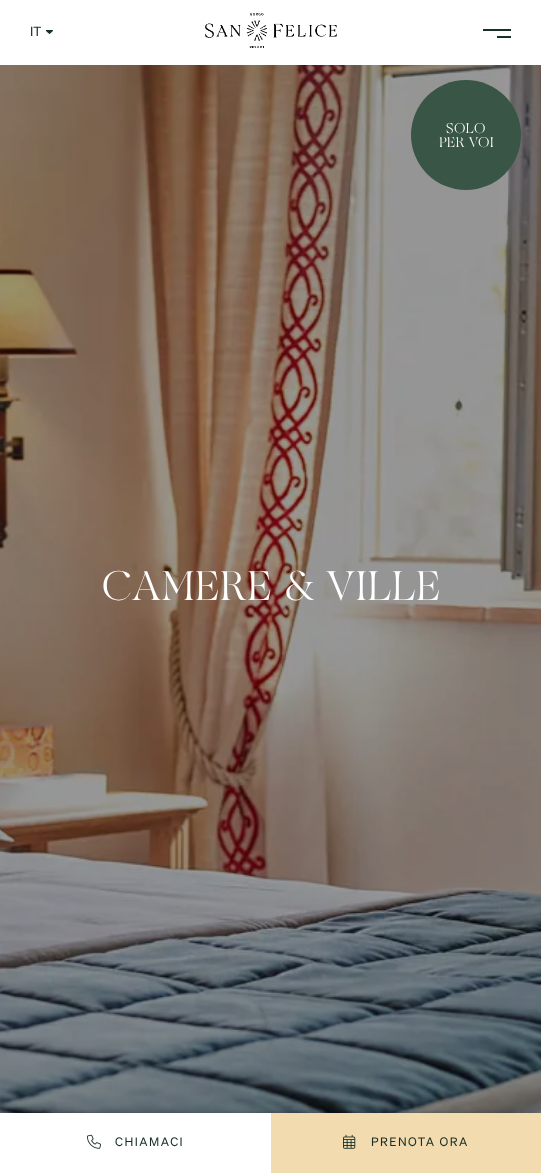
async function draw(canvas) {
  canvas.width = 541
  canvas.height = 1173
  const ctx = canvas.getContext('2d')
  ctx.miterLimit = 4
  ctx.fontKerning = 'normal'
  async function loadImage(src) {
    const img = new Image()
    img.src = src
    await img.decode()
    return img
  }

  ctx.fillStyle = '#fff'
  ctx.fillRect(0, 0, 541, 1173)
  ctx.font = '13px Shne'
  ctx.fillStyle = '#183029'
  ctx.fillText('IT', 30, 36)
  ctx.drawImage(await loadImage('image0.png'), 46, 30, 7, 4)
  ctx.drawImage(await loadImage('image1.png'), 205, 12, 132, 36)
  ctx.fillRect(483, 29, 28, 2)
  ctx.fillRect(497, 36, 14, 2)
  ctx.drawImage(await loadImage('image2.png'), 0, 65, 541, 1048)
  ctx.fillStyle = '#395546'
  ctx.beginPath()
  ctx.arc(466, 135, 55, 0, 2 * Math.PI)
  ctx.fill()
  ctx.font = '13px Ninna'
  ctx.fillStyle = '#fff'
  ctx.fillText('SOLO', 446, 133)
  ctx.fillText('PER VOI', 439, 147)
  ctx.font = '38px Ninna'
  ctx.fillText('CAMERE & VILLE', 101, 600)
  ctx.fillStyle = '#000'
  ctx.filter = 'blur(5px)'
  ctx.beginPath()
  ctx.rect(5, 1118, 535, 54)
  ctx.fill()
  ctx.filter = 'none'
  ctx.fillStyle = '#fff'
  ctx.fillRect(0, 1113, 271, 60)
  ctx.drawImage(await loadImage('image3.png'), 87, 1134, 14, 15)
  ctx.letterSpacing = '1.5px'
  ctx.font = '12px Shne'
  ctx.fillStyle = '#183029'
  ctx.fillText('CHIAMACI', 115, 1146)
  ctx.fillStyle = '#f2dbaf'
  ctx.fillRect(271, 1113, 270, 60)
  ctx.drawImage(await loadImage('image4.png'), 343, 1134, 13, 15)
  ctx.fillStyle = '#183029'
  ctx.fillText('PRENOTA ORA', 371, 1146)
}

draw(document.querySelector('canvas'))
